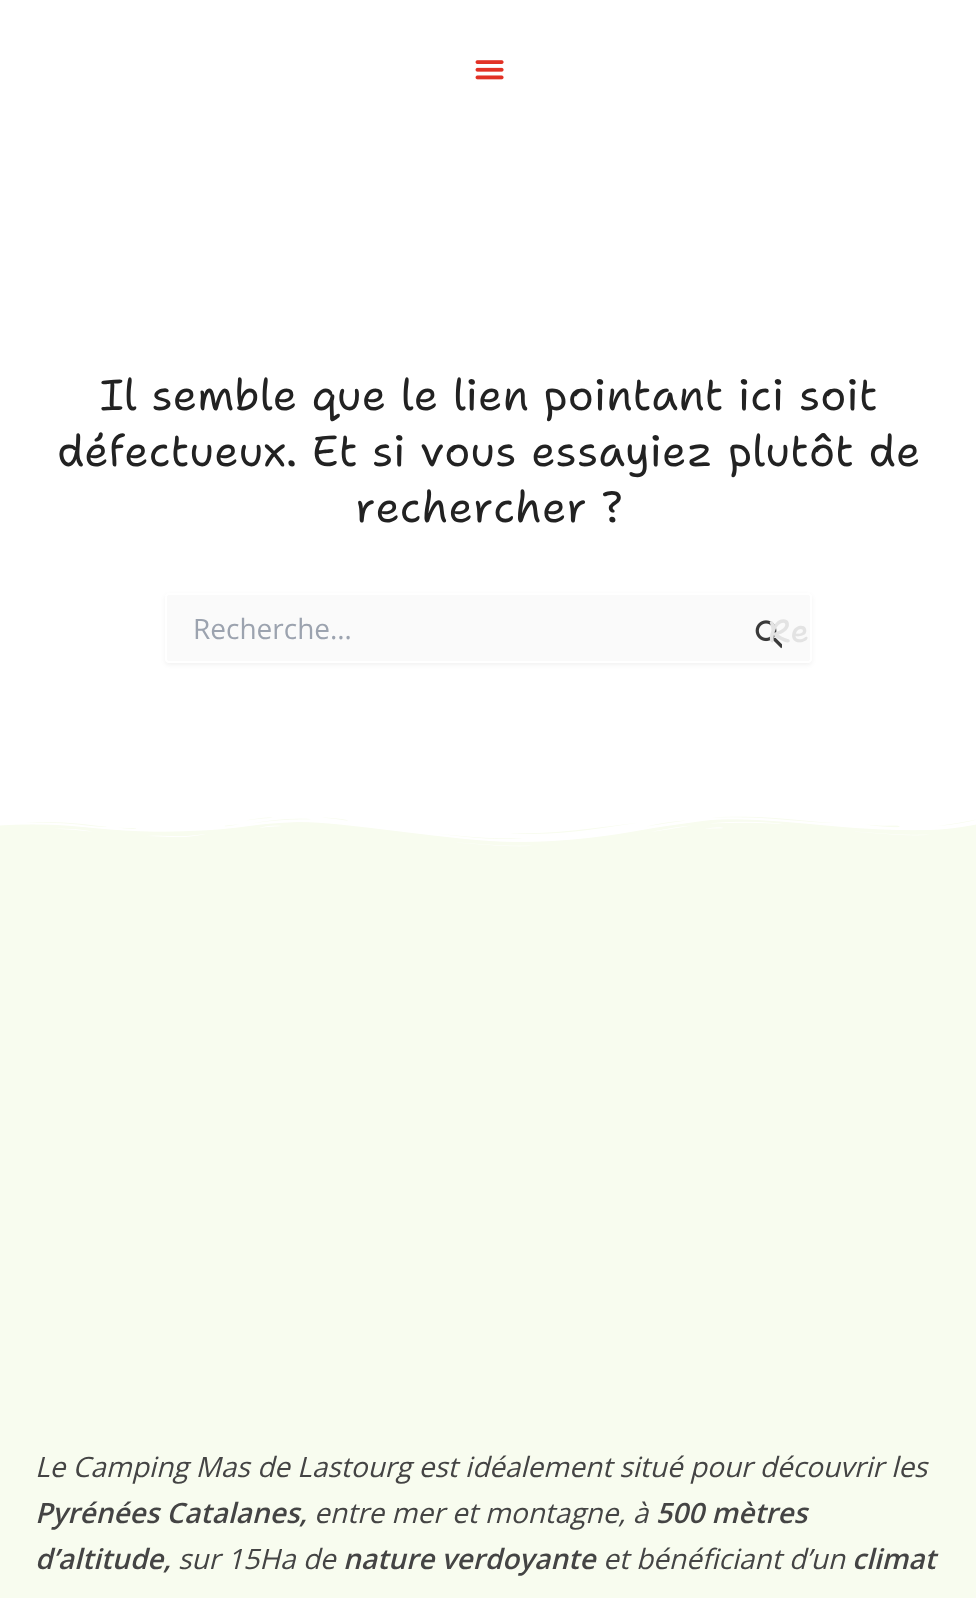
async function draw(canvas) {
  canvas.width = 976
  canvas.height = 1598
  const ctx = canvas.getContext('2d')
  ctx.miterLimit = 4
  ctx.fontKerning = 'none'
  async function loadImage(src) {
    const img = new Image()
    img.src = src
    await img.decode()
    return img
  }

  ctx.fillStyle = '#fff'
  ctx.fillRect(0, 0, 976, 1598)
  ctx.drawImage(await loadImage('image0.png'), 475, 60, 29, 20)
  ctx.font = '43.1px Shantell Sans'
  ctx.fillStyle = '#222'
  ctx.fillText('Il semble que le lien pointant ici', 100, 410)
  ctx.fillText('soit', 799, 410)
  ctx.fillText('défectueux. Et', 57, 466)
  ctx.fillText('si vous essayiez', 372, 466)
  ctx.fillText('plutôt de', 728, 466)
  ctx.fillText('rechercher', 355, 522)
  ctx.fillText('?', 602, 522)
  ctx.fillStyle = '#0000000d'
  ctx.filter = 'blur(2px)'
  ctx.beginPath()
  ctx.roundRect(165, 595, 647, 70, 4)
  ctx.fill()
  ctx.filter = 'none'
  ctx.fillStyle = '#fafafa'
  ctx.beginPath()
  ctx.roundRect(166, 594, 645, 68, 3)
  ctx.fill()
  ctx.strokeStyle = '#fff'
  ctx.lineWidth = 2
  ctx.stroke()
  ctx.font = '28px Open Sans'
  ctx.fillStyle = '#9ca3af'
  ctx.fillText('Recherche…', 193, 639)
  ctx.drawImage(await loadImage('image1.png'), 755, 620, 27, 29)
  ctx.font = '500 32px Shantell Sans'
  ctx.fillStyle = '#e3e3e3'
  ctx.fillText('Re', 768, 642)
  ctx.fillStyle = '#f8fcef'
  ctx.fillRect(0, 816, 976, 782)
  ctx.drawImage(await loadImage('image2.png'), 0, 814, 976, 33)
  ctx.font = 'italic 28px Open Sans'
  ctx.fillStyle = '#444'
  ctx.fillText('Le Camping Mas de Lastourg est idéalement situé pour découvrir les', 35, 1477)
  ctx.font = 'italic 600 28px Open Sans'
  ctx.fillText('Pyrénées Catalanes,', 35, 1523)
  ctx.font = 'italic 28px Open Sans'
  ctx.fillText('entre mer et montagne, à', 314, 1523)
  ctx.font = 'italic 600 28px Open Sans'
  ctx.fillText('500 mètres', 656, 1523)
  ctx.fillText('d’altitude,', 35, 1569)
  ctx.font = 'italic 28px Open Sans'
  ctx.fillText('sur 15Ha de', 178, 1569)
  ctx.font = 'italic 600 28px Open Sans'
  ctx.fillText('nature verdoyante', 343, 1569)
  ctx.font = 'italic 28px Open Sans'
  ctx.fillText('et bénéficiant d’un', 603, 1569)
  ctx.font = 'italic 600 28px Open Sans'
  ctx.fillText('climat', 852, 1569)
}

draw(document.querySelector('canvas'))
